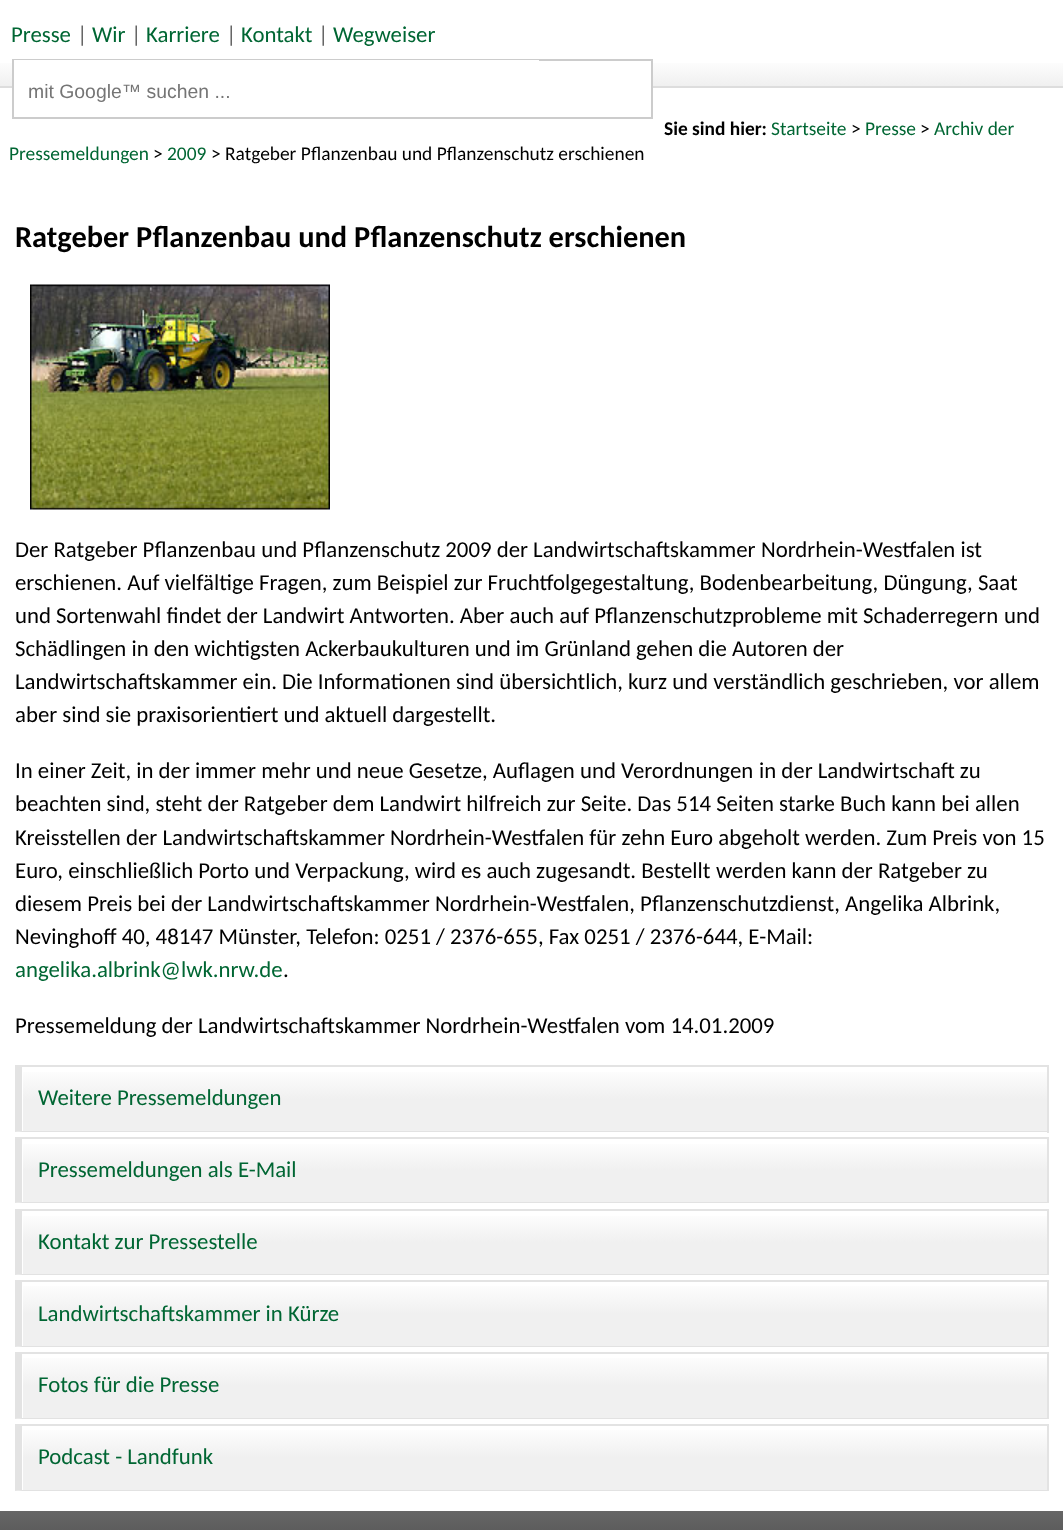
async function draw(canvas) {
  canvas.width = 1063
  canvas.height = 1530
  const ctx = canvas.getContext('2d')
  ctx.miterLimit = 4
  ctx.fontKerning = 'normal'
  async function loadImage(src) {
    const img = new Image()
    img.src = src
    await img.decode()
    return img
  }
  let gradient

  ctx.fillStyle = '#fff'
  ctx.fillRect(0, 0, 1063, 1530)
  ctx.font = '22.8px Carlito'
  ctx.fillStyle = '#063'
  ctx.fillText('Presse', 11, 42)
  ctx.fillStyle = '#666'
  ctx.fillText('|', 77, 42)
  ctx.fillStyle = '#063'
  ctx.fillText('Wir', 92, 42)
  ctx.fillStyle = '#666'
  ctx.fillText('|', 131, 42)
  ctx.fillStyle = '#063'
  ctx.fillText('Karriere', 146, 42)
  ctx.fillStyle = '#666'
  ctx.fillText('|', 226, 42)
  ctx.fillStyle = '#063'
  ctx.fillText('Kontakt', 241, 42)
  ctx.fillStyle = '#666'
  ctx.fillText('|', 318, 42)
  ctx.fillStyle = '#063'
  ctx.fillText('Wegweiser', 333, 42)
  gradient = ctx.createLinearGradient(532, 58, 532, 86)
  gradient.addColorStop(0, '#fff')
  gradient.addColorStop(1, '#f0f0f0')
  ctx.fillStyle = gradient
  ctx.fillRect(0, 63, 1063, 23)
  ctx.fillStyle = '#ddd'
  ctx.fillRect(0, 86, 1063, 2)
  ctx.fillStyle = '#fff'
  ctx.fillRect(14, 63, 637, 25)
  ctx.strokeStyle = '#ccc'
  ctx.lineWidth = 2
  ctx.strokeRect(13, 60, 639, 58)
  ctx.fillRect(14, 60, 525, 1)
  ctx.font = '19.4px Liberation Sans'
  ctx.fillStyle = '#757575'
  ctx.fillText('mit Google™ suchen ...', 28, 98)
  ctx.font = 'bold 19.4px Carlito'
  ctx.fillStyle = '#000'
  ctx.fillText('Sie sind hier:', 664, 135)
  ctx.font = '19.4px Carlito'
  ctx.fillStyle = '#063'
  ctx.fillText('Startseite', 771, 135)
  ctx.fillStyle = '#000'
  ctx.fillText('>', 851, 135)
  ctx.fillStyle = '#063'
  ctx.fillText('Presse', 865, 135)
  ctx.fillStyle = '#000'
  ctx.fillText('>', 920, 135)
  ctx.fillStyle = '#063'
  ctx.fillText('Archiv der', 934, 135)
  ctx.fillText('Pressemeldungen', 9, 160)
  ctx.fillStyle = '#000'
  ctx.fillText('>', 153, 160)
  ctx.fillStyle = '#063'
  ctx.fillText('2009', 167, 160)
  ctx.fillStyle = '#000'
  ctx.fillText('> Ratgeber Pflanzenbau und Pflanzenschutz erschienen', 211, 160)
  ctx.font = 'bold 30.4px Carlito'
  ctx.fillText('Ratgeber Pflanzenbau und Pflanzenschutz erschienen', 15, 247)
  ctx.drawImage(await loadImage('image0.png'), 30, 284, 300, 226)
  ctx.font = '22.8px Carlito'
  ctx.fillText('Der Ratgeber Pflanzenbau und Pflanzenschutz 2009 der Landwirtschaftskammer', 15, 557)
  ctx.fillText('Nordrhein-Westfalen ist', 761, 557)
  ctx.fillText('erschienen. Auf vielfältige Fragen, zum Beispiel zur Fruchtfolgegestaltung, Bodenbearbeitung, Düngung, Saat', 15, 590)
  ctx.fillText('und Sortenwahl findet der Landwirt Antworten. Aber auch auf Pflanzenschutzprobleme mit Schaderregern', 15, 623)
  ctx.fillText('und', 1004, 623)
  ctx.fillText('Schädlingen in den wichtigsten Ackerbaukulturen und im Grünland', 15, 656)
  ctx.fillText('gehen die Autoren der', 636, 656)
  ctx.fillText('Landwirtschaftskammer ein. Die Informationen sind übersichtlich,', 15, 689)
  ctx.fillText('kurz und verständlich geschrieben, vor allem', 628, 689)
  ctx.fillText('aber sind sie praxisorientiert und aktuell dargestellt.', 15, 722)
  ctx.fillText('In einer Zeit, in der immer mehr und neue Gesetze, Auflagen und Verordnungen', 15, 778)
  ctx.fillText('in der Landwirtschaft zu', 759, 778)
  ctx.fillText('beachten sind, steht der Ratgeber dem Landwirt hilfreich zur Seite. Das 514 Seiten starke Buch kann bei allen', 15, 811)
  ctx.fillText('Kreisstellen der Landwirtschaftskammer Nordrhein-Westfalen für zehn Euro abgeholt werden. Zum Preis von 15', 15, 845)
  ctx.fillText('Euro, einschließlich Porto und Verpackung, wird es auch zugesandt. Bestellt', 15, 878)
  ctx.fillText('werden kann der Ratgeber zu', 716, 878)
  ctx.fillText('diesem Preis bei der Landwirtschaftskammer Nordrhein-Westfalen,', 15, 911)
  ctx.fillText('Pflanzenschutzdienst, Angelika Albrink,', 640, 911)
  ctx.fillText('Nevinghoff 40, 48147 Münster, Telefon: 0251 / 2376-655, Fax 0251 / 2376-644, E-Mail:', 15, 944)
  ctx.fillStyle = '#063'
  ctx.fillText('angelika.albrink@lwk.nrw.de', 15, 977)
  ctx.fillStyle = '#000'
  ctx.fillText('.', 283, 977)
  ctx.fillText('Pressemeldung der Landwirtschaftskammer Nordrhein-Westfalen vom 14.01.2009', 15, 1033)
  gradient = ctx.createLinearGradient(535, 1067, 535, 1131)
  gradient.addColorStop(0, '#fff')
  gradient.addColorStop(0.5, '#f0f0f0')
  ctx.fillStyle = gradient
  ctx.fillRect(23, 1072, 1024, 59)
  ctx.fillStyle = '#e3e3e3'
  ctx.fillRect(15, 1065, 1034, 2)
  ctx.fillRect(1047, 1065, 2, 68)
  ctx.fillStyle = '#e2e2e2'
  ctx.beginPath()
  ctx.moveTo(1048, 1132)
  ctx.lineTo(15, 1132)
  ctx.lineTo(22, 1131)
  ctx.lineTo(1047, 1131)
  ctx.closePath()
  ctx.fill()
  ctx.fillStyle = '#e3e3e3'
  ctx.beginPath()
  ctx.moveTo(15, 1132)
  ctx.lineTo(15, 1065)
  ctx.lineTo(22, 1066)
  ctx.lineTo(22, 1131)
  ctx.closePath()
  ctx.fill()
  ctx.fillStyle = '#063'
  ctx.fillText('Weitere Pressemeldungen', 38, 1105)
  gradient = ctx.createLinearGradient(535, 1139, 535, 1202)
  gradient.addColorStop(0, '#fff')
  gradient.addColorStop(0.5, '#f0f0f0')
  ctx.fillStyle = gradient
  ctx.fillRect(23, 1144, 1024, 58)
  ctx.fillStyle = '#e3e3e3'
  ctx.fillRect(15, 1137, 1034, 2)
  ctx.fillRect(1047, 1137, 2, 66)
  ctx.fillStyle = '#e2e2e2'
  ctx.beginPath()
  ctx.moveTo(1048, 1203)
  ctx.lineTo(15, 1203)
  ctx.lineTo(22, 1202)
  ctx.lineTo(1047, 1202)
  ctx.closePath()
  ctx.fill()
  ctx.fillStyle = '#e3e3e3'
  ctx.beginPath()
  ctx.moveTo(15, 1203)
  ctx.lineTo(15, 1137)
  ctx.lineTo(22, 1138)
  ctx.lineTo(22, 1202)
  ctx.closePath()
  ctx.fill()
  ctx.fillStyle = '#063'
  ctx.fillText('Pressemeldungen als E-Mail', 38, 1177)
  gradient = ctx.createLinearGradient(535, 1211, 535, 1274)
  gradient.addColorStop(0, '#fff')
  gradient.addColorStop(0.5, '#f0f0f0')
  ctx.fillStyle = gradient
  ctx.fillRect(23, 1216, 1024, 58)
  ctx.fillStyle = '#e3e3e3'
  ctx.fillRect(15, 1209, 1034, 2)
  ctx.fillRect(1047, 1209, 2, 66)
  ctx.fillStyle = '#e2e2e2'
  ctx.beginPath()
  ctx.moveTo(1048, 1275)
  ctx.lineTo(15, 1275)
  ctx.lineTo(22, 1274)
  ctx.lineTo(1047, 1274)
  ctx.closePath()
  ctx.fill()
  ctx.fillStyle = '#e3e3e3'
  ctx.beginPath()
  ctx.moveTo(15, 1275)
  ctx.lineTo(15, 1209)
  ctx.lineTo(22, 1210)
  ctx.lineTo(22, 1274)
  ctx.closePath()
  ctx.fill()
  ctx.fillStyle = '#063'
  ctx.fillText('Kontakt zur Pressestelle', 38, 1249)
  gradient = ctx.createLinearGradient(535, 1281, 535, 1346)
  gradient.addColorStop(0, '#fff')
  gradient.addColorStop(0.5, '#f0f0f0')
  ctx.fillStyle = gradient
  ctx.fillRect(23, 1286, 1024, 60)
  ctx.fillStyle = '#e3e3e3'
  ctx.fillRect(15, 1280, 1034, 2)
  ctx.fillRect(1047, 1280, 2, 67)
  ctx.fillStyle = '#e2e2e2'
  ctx.beginPath()
  ctx.moveTo(1048, 1347)
  ctx.lineTo(15, 1347)
  ctx.lineTo(22, 1346)
  ctx.lineTo(1047, 1346)
  ctx.closePath()
  ctx.fill()
  ctx.fillStyle = '#e3e3e3'
  ctx.beginPath()
  ctx.moveTo(15, 1347)
  ctx.lineTo(15, 1280)
  ctx.lineTo(22, 1281)
  ctx.lineTo(22, 1346)
  ctx.closePath()
  ctx.fill()
  ctx.fillStyle = '#063'
  ctx.fillText('Landwirtschaftskammer in Kürze', 38, 1321)
  gradient = ctx.createLinearGradient(535, 1353, 535, 1418)
  gradient.addColorStop(0, '#fff')
  gradient.addColorStop(0.5, '#f0f0f0')
  ctx.fillStyle = gradient
  ctx.fillRect(23, 1358, 1024, 60)
  ctx.fillStyle = '#e3e3e3'
  ctx.fillRect(15, 1352, 1034, 2)
  ctx.fillRect(1047, 1352, 2, 67)
  ctx.fillStyle = '#e2e2e2'
  ctx.beginPath()
  ctx.moveTo(1048, 1419)
  ctx.lineTo(15, 1419)
  ctx.lineTo(22, 1418)
  ctx.lineTo(1047, 1418)
  ctx.closePath()
  ctx.fill()
  ctx.fillStyle = '#e3e3e3'
  ctx.beginPath()
  ctx.moveTo(15, 1419)
  ctx.lineTo(15, 1352)
  ctx.lineTo(22, 1353)
  ctx.lineTo(22, 1418)
  ctx.closePath()
  ctx.fill()
  ctx.fillStyle = '#063'
  ctx.fillText('Fotos für die Presse', 38, 1392)
  gradient = ctx.createLinearGradient(535, 1425, 535, 1490)
  gradient.addColorStop(0, '#fff')
  gradient.addColorStop(0.5, '#f0f0f0')
  ctx.fillStyle = gradient
  ctx.fillRect(23, 1430, 1024, 60)
  ctx.fillStyle = '#e3e3e3'
  ctx.fillRect(15, 1424, 1034, 2)
  ctx.fillRect(1047, 1424, 2, 67)
  ctx.fillStyle = '#e2e2e2'
  ctx.beginPath()
  ctx.moveTo(1048, 1491)
  ctx.lineTo(15, 1491)
  ctx.lineTo(22, 1490)
  ctx.lineTo(1047, 1490)
  ctx.closePath()
  ctx.fill()
  ctx.fillStyle = '#e3e3e3'
  ctx.beginPath()
  ctx.moveTo(15, 1491)
  ctx.lineTo(15, 1424)
  ctx.lineTo(22, 1425)
  ctx.lineTo(22, 1490)
  ctx.closePath()
  ctx.fill()
  ctx.fillStyle = '#063'
  ctx.fillText('Podcast - Landfunk', 38, 1464)
  gradient = ctx.createLinearGradient(532, 1511, 532, 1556)
  gradient.addColorStop(0, '#666')
  gradient.addColorStop(0.8, '#555')
  ctx.fillStyle = gradient
  ctx.fillRect(0, 1511, 1063, 19)
}

draw(document.querySelector('canvas'))
